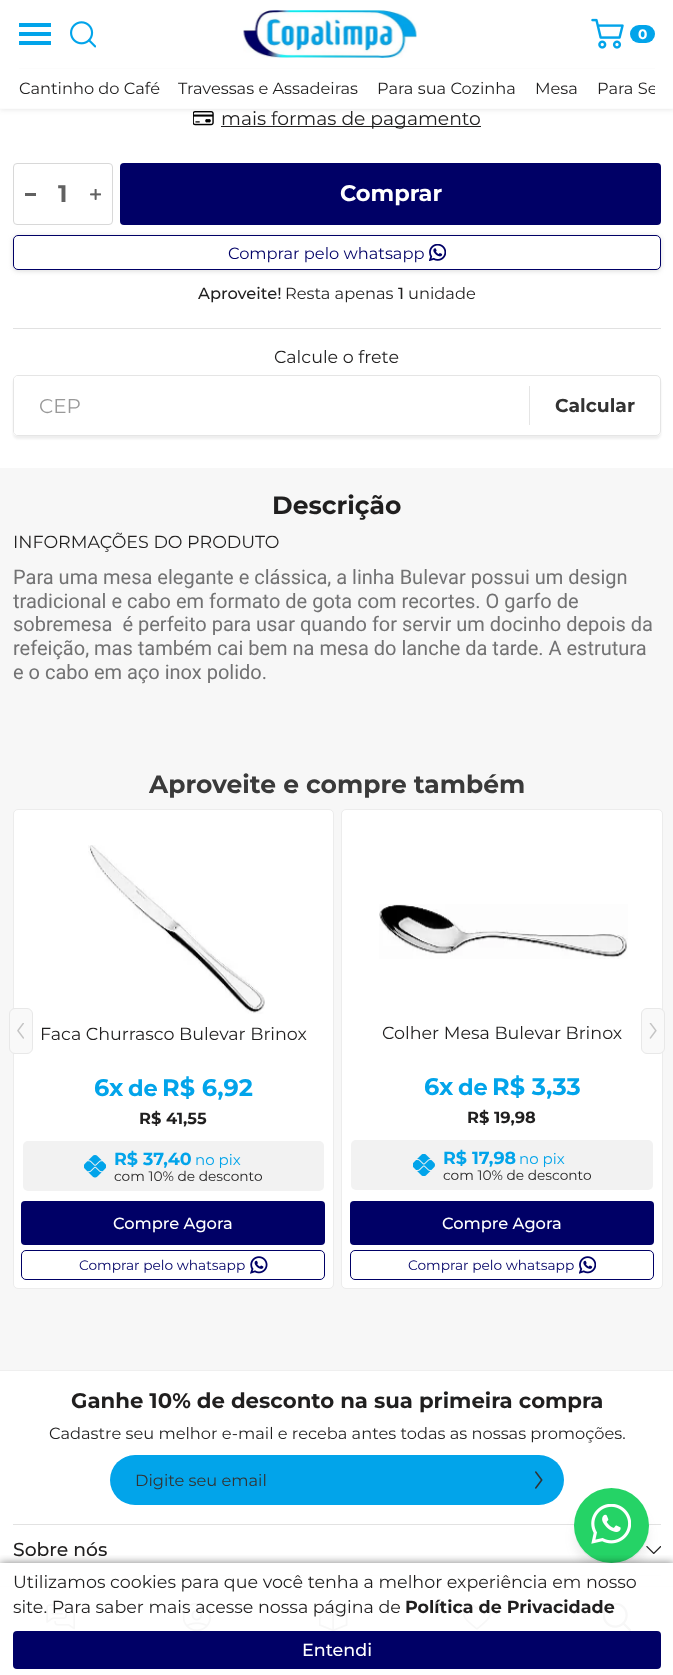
async function draw(canvas) {
  canvas.width = 673
  canvas.height = 1675
  const ctx = canvas.getContext('2d')
  ctx.miterLimit = 4
  ctx.fontKerning = 'normal'
  async function loadImage(src) {
    const img = new Image()
    img.src = src
    await img.decode()
    return img
  }

  ctx.fillStyle = '#f7f7f7'
  ctx.fillRect(0, 0, 673, 1675)
  ctx.fillStyle = '#fff'
  ctx.fillRect(0, 109, 673, 359)
  ctx.drawImage(await loadImage('image3.png'), 193, 111, 21, 15)
  ctx.fillStyle = '#52525221'
  ctx.filter = 'blur(2.5px)'
  ctx.beginPath()
  ctx.rect(0, 1, 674, 109)
  ctx.fill()
  ctx.filter = 'none'
  ctx.fillStyle = '#fff'
  ctx.fillRect(0, 0, 673, 108)
  ctx.fillStyle = '#fcfcfc'
  ctx.fillRect(0, 108, 673, 1)
  ctx.fillStyle = '#02a4ea'
  ctx.fillRect(19, 41, 32, 4)
  ctx.fillRect(19, 32, 32, 4)
  ctx.fillRect(19, 23, 32, 4)
  ctx.drawImage(await loadImage('image0.png'), 70, 21, 26, 27)
  ctx.drawImage(await loadImage('image1.png'), 243, 10, 174, 48)
  ctx.drawImage(await loadImage('image2.png'), 591, 18, 33, 31)
  ctx.beginPath()
  ctx.roundRect(630, 25, 25, 18, 9)
  ctx.fill()
  ctx.font = 'bold 13.75px Montserrat'
  ctx.fillStyle = '#fff'
  ctx.fillText('0', 638, 39)
  ctx.fillStyle = '#fcfcfc'
  ctx.fillRect(19, 68, 636, 1)
  ctx.font = '16.25px Montserrat'
  ctx.fillStyle = '#201f1f'
  ctx.fillText('Cantinho do Café', 19, 94)
  ctx.fillText('Travessas e Assadeiras', 178, 94)
  ctx.fillText('Para sua Cozinha', 377, 94)
  ctx.fillText('Mesa', 535, 94)
  ctx.save()
  ctx.beginPath()
  ctx.rect(19, 69, 636, 29)
  ctx.clip()
  ctx.fillText('Para Se', 597, 94)
  ctx.restore()
  ctx.fillRect(221, 126, 260, 1)
  ctx.font = '18.75px Montserrat'
  ctx.fillText('mais formas de pagamento', 221, 125)
  ctx.beginPath()
  ctx.roundRect(13.5, 163.5, 99, 61, 3.5)
  ctx.strokeStyle = '#d8d8d8'
  ctx.stroke()
  ctx.fillStyle = '#616161'
  ctx.fillRect(25, 193, 11, 3)
  ctx.font = 'bold 24px Montserrat'
  ctx.fillText('1', 58, 202)
  ctx.drawImage(await loadImage('image4.png'), 90, 189, 11, 11)
  ctx.fillStyle = '#006'
  ctx.beginPath()
  ctx.roundRect(120, 163, 541, 62, 4)
  ctx.fill()
  ctx.font = 'bold 22.5px Montserrat'
  ctx.fillStyle = '#fff'
  ctx.fillText('Comprar', 340, 201)
  ctx.fillStyle = '#b1b1b175'
  ctx.filter = 'blur(2.5px)'
  ctx.beginPath()
  ctx.roundRect(13, 236, 648, 35, 5)
  ctx.fill()
  ctx.filter = 'none'
  ctx.fillStyle = '#fff'
  ctx.beginPath()
  ctx.roundRect(13.5, 235.5, 647, 34, 4.5)
  ctx.fill()
  ctx.strokeStyle = '#006'
  ctx.stroke()
  ctx.font = '16.25px Montserrat'
  ctx.fillStyle = '#006'
  ctx.fillText('Comprar pelo whatsapp', 228, 259)
  ctx.drawImage(await loadImage('image5.png'), 429, 244, 17, 17)
  ctx.font = '500 16.25px Montserrat'
  ctx.fillStyle = '#201f1f'
  ctx.fillText('Aproveite!', 198, 299)
  ctx.font = '16.25px Montserrat'
  ctx.fillText('Resta apenas', 285, 299)
  ctx.font = '500 16.25px Montserrat'
  ctx.fillText('1', 398, 299)
  ctx.font = '16.25px Montserrat'
  ctx.fillText('unidade', 408, 299)
  ctx.fillStyle = '#e1e1e1'
  ctx.fillRect(13, 328, 648, 1)
  ctx.font = '17.5px Montserrat'
  ctx.fillStyle = '#201f1f'
  ctx.fillText('Calcule o frete', 274, 363)
  ctx.save()
  ctx.beginPath()
  ctx.moveTo(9, 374)
  ctx.lineTo(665, 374)
  ctx.lineTo(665, 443)
  ctx.lineTo(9, 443)
  ctx.closePath()
  ctx.moveTo(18, 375)
  ctx.lineTo(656, 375)
  ctx.bezierCurveTo(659, 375, 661, 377, 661, 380)
  ctx.lineTo(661, 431)
  ctx.bezierCurveTo(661, 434, 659, 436, 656, 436)
  ctx.lineTo(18, 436)
  ctx.bezierCurveTo(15, 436, 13, 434, 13, 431)
  ctx.lineTo(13, 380)
  ctx.bezierCurveTo(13, 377, 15, 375, 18, 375)
  ctx.closePath()
  ctx.clip('evenodd')
  ctx.fillStyle = '#cdcdcd59'
  ctx.filter = 'blur(1px)'
  ctx.beginPath()
  ctx.roundRect(13, 378, 648, 61, 5)
  ctx.fill()
  ctx.filter = 'none'
  ctx.restore()
  ctx.beginPath()
  ctx.roundRect(13.5, 375.5, 647, 60, 4.5)
  ctx.strokeStyle = '#e5e5e5'
  ctx.stroke()
  ctx.fillStyle = '#fff'
  ctx.beginPath()
  ctx.roundRect(14, 376, 515, 59, 4)
  ctx.fill()
  ctx.font = '20px Montserrat'
  ctx.fillStyle = '#999'
  ctx.fillText('CEP', 39, 413)
  ctx.fillStyle = '#e5e5e5'
  ctx.fillRect(529, 386, 1, 39)
  ctx.font = 'bold 18.75px Montserrat'
  ctx.fillStyle = '#333'
  ctx.fillText('Calcular', 555, 412)
  ctx.font = 'bold 25px Montserrat'
  ctx.fillStyle = '#201f1f'
  ctx.fillText('Descrição', 272, 514)
  ctx.font = '17.5px Montserrat'
  ctx.fillText('INFORMAÇÕES DO PRODUTO', 13, 548)
  ctx.font = '20px Roboto'
  ctx.fillStyle = '#727273'
  ctx.fillText('Para uma mesa elegante e clássica, a linha Bulevar possui um design', 13, 584)
  ctx.fillText('tradicional e cabo em formato de gota com recortes. O garfo de', 13, 608)
  ctx.fillText('sobremesa  é perfeito para usar quando for servir um docinho depois da', 13, 631)
  ctx.fillText('refeição, mas também cai bem na mesa do lanche da tarde. A estrutura', 13, 655)
  ctx.fillText('e o cabo em aço inox polido.', 13, 679)
  ctx.font = 'bold 25px Montserrat'
  ctx.fillStyle = '#3a3a3a'
  ctx.fillText('Aproveite e compre também', 149, 793)
  ctx.fillStyle = '#fff'
  ctx.beginPath()
  ctx.roundRect(13.5, 809.5, 320, 479, 4.5)
  ctx.fill()
  ctx.strokeStyle = '#ececec'
  ctx.stroke()
  ctx.fillStyle = '#f9f9f9'
  ctx.beginPath()
  ctx.roundRect(9.5, 1008.5, 23, 45, 5.5)
  ctx.fill()
  ctx.strokeStyle = '#e8e8e8'
  ctx.stroke()
  ctx.drawImage(await loadImage('image6.png'), 17, 1023, 7, 16)
  ctx.drawImage(await loadImage('image7.png'), 88, 845, 177, 169)
  ctx.font = '17.5px Montserrat'
  ctx.fillStyle = '#201f1f'
  ctx.fillText('Faca Churrasco Bulevar Brinox', 40, 1040)
  ctx.font = 'bold 24px Montserrat'
  ctx.fillStyle = '#02a4ea'
  ctx.fillText('6x', 94, 1096)
  ctx.font = 'bold 22.5px Montserrat'
  ctx.fillText('de', 128, 1096)
  ctx.font = 'bold 24px Montserrat'
  ctx.fillText('R$ 6,92', 162, 1096)
  ctx.font = 'bold 16.25px Montserrat'
  ctx.fillStyle = '#201f1f'
  ctx.fillText('R$ 41,55', 139, 1124)
  ctx.fillStyle = '#f2f2f2'
  ctx.beginPath()
  ctx.roundRect(23, 1141, 301, 50, 5)
  ctx.fill()
  ctx.drawImage(await loadImage('image8.png'), 84, 1155, 22, 23)
  ctx.font = 'bold 17.5px Montserrat'
  ctx.fillStyle = '#02a4ea'
  ctx.fillText('R$ 37,40', 114, 1165)
  ctx.font = '15px Montserrat'
  ctx.fillText('no pix', 195, 1165)
  ctx.font = '13.75px Montserrat'
  ctx.fillStyle = '#201f1f'
  ctx.fillText('com 10% de desconto', 114, 1181)
  ctx.fillStyle = '#006'
  ctx.beginPath()
  ctx.roundRect(21, 1201, 304, 44, 4)
  ctx.fill()
  ctx.font = '500 16.25px Montserrat'
  ctx.fillStyle = '#fff'
  ctx.fillText('Compre Agora', 113, 1229)
  ctx.beginPath()
  ctx.roundRect(21.5, 1250.5, 303, 29, 4.5)
  ctx.strokeStyle = '#006'
  ctx.stroke()
  ctx.font = '13.75px Montserrat'
  ctx.fillStyle = '#006'
  ctx.fillText('Comprar pelo whatsapp', 79, 1270)
  ctx.drawImage(await loadImage('image9.png'), 250, 1256, 18, 18)
  ctx.fillStyle = '#fff'
  ctx.beginPath()
  ctx.roundRect(341.5, 809.5, 321, 479, 4.5)
  ctx.fill()
  ctx.strokeStyle = '#ececec'
  ctx.stroke()
  ctx.drawImage(await loadImage('image10.png'), 379, 904, 249, 55)
  ctx.font = '17.5px Montserrat'
  ctx.fillStyle = '#201f1f'
  ctx.fillText('Colher Mesa Bulevar Brinox', 382, 1039)
  ctx.font = 'bold 24px Montserrat'
  ctx.fillStyle = '#02a4ea'
  ctx.fillText('6x', 424, 1095)
  ctx.font = 'bold 22.5px Montserrat'
  ctx.fillText('de', 458, 1095)
  ctx.font = 'bold 24px Montserrat'
  ctx.fillText('R$ 3,33', 492, 1095)
  ctx.font = 'bold 16.25px Montserrat'
  ctx.fillStyle = '#201f1f'
  ctx.fillText('R$ 19,98', 467, 1123)
  ctx.fillStyle = '#f2f2f2'
  ctx.beginPath()
  ctx.roundRect(351, 1140, 302, 50, 5)
  ctx.fill()
  ctx.drawImage(await loadImage('image11.png'), 413, 1154, 22, 22)
  ctx.font = 'bold 17.5px Montserrat'
  ctx.fillStyle = '#02a4ea'
  ctx.fillText('R$ 17,98', 443, 1164)
  ctx.font = '15px Montserrat'
  ctx.fillText('no pix', 519, 1164)
  ctx.font = '13.75px Montserrat'
  ctx.fillStyle = '#201f1f'
  ctx.fillText('com 10% de desconto', 443, 1180)
  ctx.fillStyle = '#006'
  ctx.beginPath()
  ctx.roundRect(350, 1201, 304, 44, 4)
  ctx.fill()
  ctx.font = '500 16.25px Montserrat'
  ctx.fillStyle = '#fff'
  ctx.fillText('Compre Agora', 442, 1229)
  ctx.beginPath()
  ctx.roundRect(350.5, 1250.5, 303, 29, 4.5)
  ctx.strokeStyle = '#006'
  ctx.stroke()
  ctx.font = '13.75px Montserrat'
  ctx.fillStyle = '#006'
  ctx.fillText('Comprar pelo whatsapp', 408, 1270)
  ctx.drawImage(await loadImage('image12.png'), 579, 1256, 17, 18)
  ctx.fillStyle = '#f9f9f9'
  ctx.beginPath()
  ctx.roundRect(641.5, 1008.5, 23, 45, 5.5)
  ctx.fill()
  ctx.strokeStyle = '#e8e8e8'
  ctx.stroke()
  ctx.drawImage(await loadImage('image13.png'), 649, 1023, 8, 16)
  ctx.fillStyle = '#efefef'
  ctx.fillRect(0, 1370, 673, 1)
  ctx.fillStyle = '#fff'
  ctx.fillRect(0, 1371, 673, 215)
  ctx.font = 'bold 21.25px Montserrat'
  ctx.fillStyle = '#201f1f'
  ctx.fillText('Ganhe 10% de desconto na sua primeira compra', 71, 1408)
  ctx.font = '16.25px Montserrat'
  ctx.fillText('Cadastre seu melhor e-mail e receba antes todas as nossas promoções.', 49, 1439)
  ctx.fillStyle = '#02a4ea'
  ctx.beginPath()
  ctx.roundRect(110, 1455, 454, 50, 25)
  ctx.fill()
  ctx.fillStyle = '#333'
  ctx.fillText('Digite seu email', 135, 1486)
  ctx.drawImage(await loadImage('image14.png'), 535, 1471, 8, 18)
  ctx.fillStyle = '#e2e2e2'
  ctx.fillRect(13, 1524, 648, 1)
  ctx.font = '500 18.75px Montserrat'
  ctx.fillStyle = '#201f1f'
  ctx.fillText('Sobre nós', 13, 1556)
  ctx.drawImage(await loadImage('image15.png'), 646, 1546, 15, 8)
  ctx.fillStyle = '#e2e2e2'
  ctx.fillRect(13, 1575, 648, 1)
  ctx.fillStyle = '#6767671a'
  ctx.filter = 'blur(5px)'
  ctx.beginPath()
  ctx.roundRect(574, 1500, 75, 75, 37.5)
  ctx.fill()
  ctx.filter = 'none'
  ctx.fillStyle = '#0000000a'
  ctx.filter = 'blur(0.5px)'
  ctx.beginPath()
  ctx.roundRect(574, 1490, 75, 75, 37.5)
  ctx.fill()
  ctx.filter = 'none'
  ctx.fillStyle = '#25d366'
  ctx.beginPath()
  ctx.arc(611.5, 1525.5, 37.5, 0, 2 * Math.PI)
  ctx.fill()
  ctx.drawImage(await loadImage('image16.png'), 591, 1504, 40, 40)
  ctx.fillStyle = '#52525214'
  ctx.filter = 'blur(2.5px)'
  ctx.beginPath()
  ctx.rect(0, 1586, 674, 89)
  ctx.fill()
  ctx.filter = 'none'
  ctx.fillStyle = '#fff'
  ctx.fillRect(0, 1587, 673, 88)
  ctx.fillStyle = '#e2e2e2'
  ctx.fillRect(0, 1586, 673, 1)
  ctx.drawImage(await loadImage('image17.png'), 46, 1604, 29, 26)
  ctx.drawImage(await loadImage('image18.png'), 183, 1603, 28, 28)
  ctx.drawImage(await loadImage('image19.png'), 319, 1603, 29, 28)
  ctx.drawImage(await loadImage('image20.png'), 463, 1604, 28, 26)
  ctx.drawImage(await loadImage('image21.png'), 603, 1603, 28, 28)
  ctx.save()
  ctx.beginPath()
  ctx.rect(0, 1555, 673, 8)
  ctx.clip()
  ctx.fillStyle = '#00000080'
  ctx.filter = 'blur(4.5px)'
  ctx.beginPath()
  ctx.rect(0, 1563, 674, 112)
  ctx.fill()
  ctx.filter = 'none'
  ctx.restore()
  ctx.fillStyle = '#fffffff2'
  ctx.fillRect(0, 1563, 673, 68)
  ctx.font = '17.5px Montserrat'
  ctx.fillStyle = '#201f1f'
  ctx.fillText('Utilizamos cookies para que você tenha a melhor experiência em nosso', 13, 1588)
  ctx.fillText('site. Para saber mais acesse nossa página de', 13, 1613)
  ctx.font = 'bold 17.5px Montserrat'
  ctx.fillText('Política de Privacidade', 405, 1613)
  ctx.fillStyle = '#006'
  ctx.beginPath()
  ctx.roundRect(13, 1631, 648, 38, 4)
  ctx.fill()
  ctx.font = '500 17.5px Montserrat'
  ctx.fillStyle = '#fff'
  ctx.fillText('Entendi', 302, 1656)
}

draw(document.querySelector('canvas'))
